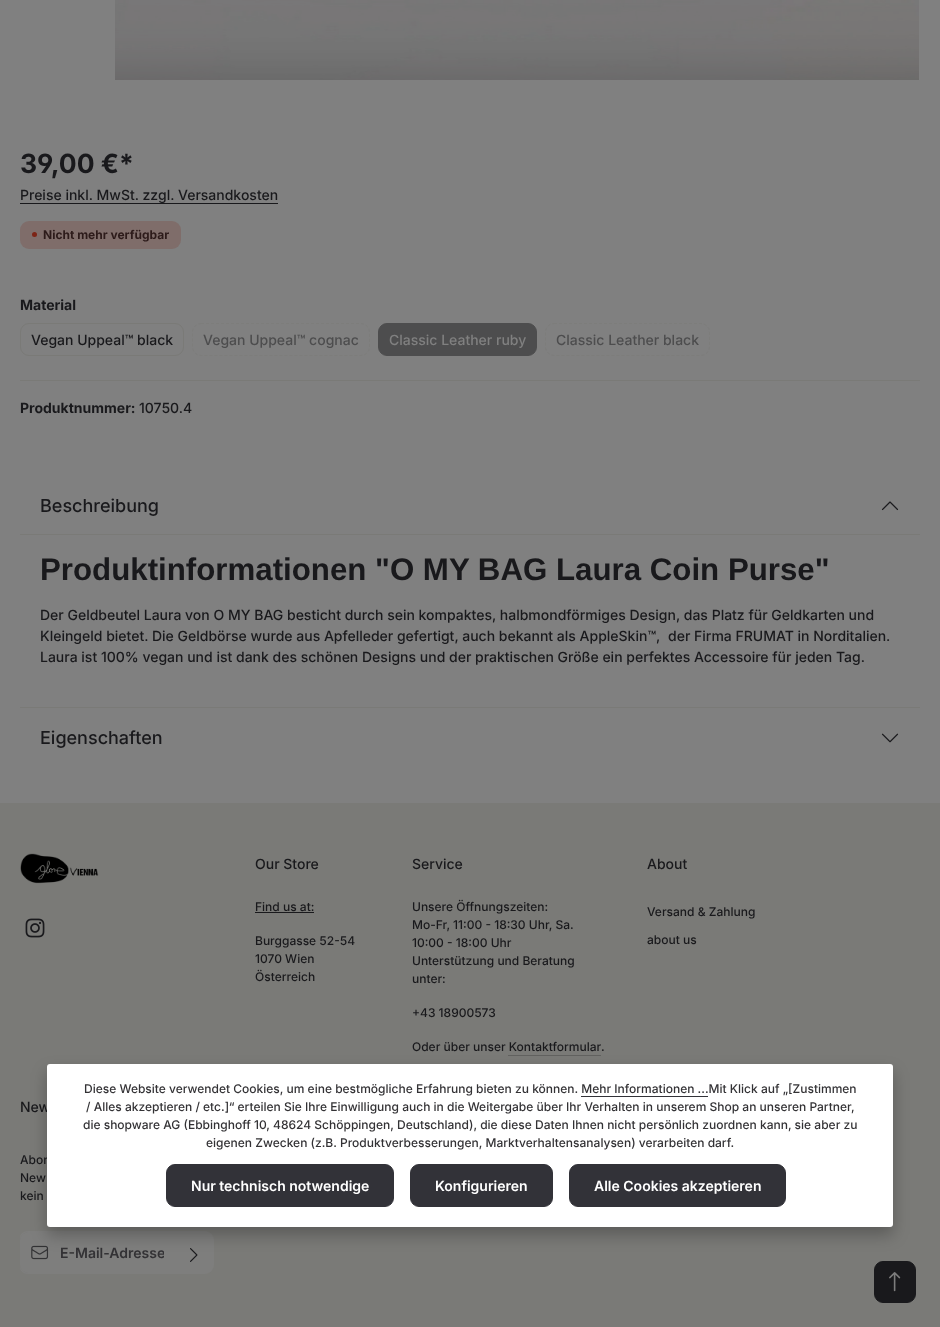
async function draw(canvas) {
  canvas.width = 940
  canvas.height = 1327
  const ctx = canvas.getContext('2d')
  ctx.miterLimit = 4
  ctx.fontKerning = 'normal'
  async function loadImage(src) {
    const img = new Image()
    img.src = src
    await img.decode()
    return img
  }

  ctx.fillStyle = '#808080'
  ctx.fillRect(0, 0, 940, 1327)
  ctx.drawImage(await loadImage('image0.png'), 115, 0, 804, 80)
  ctx.font = 'bold 26.5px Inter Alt'
  ctx.fillStyle = '#19191c'
  ctx.fillText('39,00 €*', 20, 173)
  ctx.font = '500 14px Inter'
  ctx.fillText('Preise inkl. MwSt. zzgl. Versandkosten', 20, 200)
  ctx.fillRect(20, 203, 258, 1)
  ctx.font = 'bold 12px Inter'
  ctx.fillText('Nicht mehr verfügbar', 43, 239)
  ctx.fillStyle = '#7d241633'
  ctx.beginPath()
  ctx.roundRect(20, 221, 161, 28, 9)
  ctx.fill()
  ctx.fillStyle = '#7d2416'
  ctx.beginPath()
  ctx.arc(34.5, 234.5, 2.5, 0, 2 * Math.PI)
  ctx.fill()
  ctx.font = 'bold 14px Inter'
  ctx.fillStyle = '#19191c'
  ctx.fillText('Material', 20, 310)
  ctx.beginPath()
  ctx.roundRect(20.5, 323.5, 163, 32, 8.5)
  ctx.strokeStyle = '#7a7a77'
  ctx.stroke()
  ctx.font = '500 14px Inter'
  ctx.fillText('Vegan Uppeal™ black', 31, 345)
  ctx.beginPath()
  ctx.moveTo(201, 323.5)
  ctx.lineTo(361, 323.5)
  ctx.bezierCurveTo(365.5, 323.5, 369.5, 327.5, 369.5, 332)
  ctx.lineTo(369.5, 347)
  ctx.bezierCurveTo(369.5, 351.5, 365.5, 355.5, 361, 355.5)
  ctx.lineTo(201, 355.5)
  ctx.bezierCurveTo(196.5, 355.5, 192.5, 351.5, 192.5, 347)
  ctx.lineTo(192.5, 332)
  ctx.bezierCurveTo(192.5, 327.5, 196.5, 323.5, 201, 323.5)
  ctx.closePath()
  ctx.strokeStyle = '#7d7d7b'
  ctx.setLineDash([3, 2])
  ctx.stroke()
  ctx.fillStyle = '#4d4d4e'
  ctx.fillText('Vegan Uppeal™ cognac', 203, 345)
  ctx.beginPath()
  ctx.roundRect(378.5, 323.5, 158, 32, 8.5)
  ctx.fill()
  ctx.strokeStyle = '#4d4d4e'
  ctx.setLineDash([])
  ctx.stroke()
  ctx.fillStyle = '#808080'
  ctx.fillText('Classic Leather ruby', 389, 345)
  ctx.beginPath()
  ctx.moveTo(554, 323.5)
  ctx.lineTo(701, 323.5)
  ctx.bezierCurveTo(705.5, 323.5, 709.5, 327.5, 709.5, 332)
  ctx.lineTo(709.5, 347)
  ctx.bezierCurveTo(709.5, 351.5, 705.5, 355.5, 701, 355.5)
  ctx.lineTo(554, 355.5)
  ctx.bezierCurveTo(549.5, 355.5, 545.5, 351.5, 545.5, 347)
  ctx.lineTo(545.5, 332)
  ctx.bezierCurveTo(545.5, 327.5, 549.5, 323.5, 554, 323.5)
  ctx.closePath()
  ctx.strokeStyle = '#7d7d7b'
  ctx.setLineDash([3, 2])
  ctx.stroke()
  ctx.fillStyle = '#4d4d4e'
  ctx.fillText('Classic Leather black', 556, 345)
  ctx.fillStyle = '#7a7a77'
  ctx.fillRect(20, 380, 900, 1)
  ctx.font = 'bold 14px Inter'
  ctx.fillStyle = '#19191c'
  ctx.fillText('Produktnummer:', 20, 413)
  ctx.font = '500 14px Inter'
  ctx.fillText('10750.4', 139, 413)
  ctx.fillStyle = '#7a7a77'
  ctx.fillRect(20, 707, 900, 1)
  ctx.fillRect(20, 534, 900, 1)
  ctx.font = '500 18px Inter'
  ctx.fillStyle = '#19191c'
  ctx.fillText('Beschreibung', 40, 512)
  ctx.drawImage(await loadImage('image1.png'), 881, 501, 18, 10)
  ctx.font = 'bold 31.25px Liberation Sans'
  ctx.fillText('Produktinformationen "O MY BAG Laura Coin Purse"', 40, 580)
  ctx.font = '500 14px Inter'
  ctx.fillText('Der Geldbeutel Laura von O MY BAG besticht durch sein kompaktes, halbmondförmiges Design, das Platz für Geldkarten und', 40, 620)
  ctx.fillText('Kleingeld bietet. Die Geldbörse wurde aus Apfelleder gefertigt, auch bekannt als AppleSkin™,', 40, 641)
  ctx.fillText('der Firma FRUMAT in Norditalien.', 668, 641)
  ctx.fillText('Laura ist 100% vegan und ist dank des schönen Designs und der praktischen Größe ein perfektes Accessoire für jeden Tag.', 40, 662)
  ctx.font = '500 18px Inter'
  ctx.fillText('Eigenschaften', 40, 744)
  ctx.drawImage(await loadImage('image2.png'), 881, 733, 18, 10)
  ctx.fillStyle = '#7a7a77'
  ctx.fillRect(0, 803, 940, 524)
  ctx.drawImage(await loadImage('image3.png'), 20, 853, 79, 31)
  ctx.drawImage(await loadImage('image4.png'), 25, 918, 20, 20)
  ctx.font = '500 14px Inter'
  ctx.fillStyle = '#19191c'
  ctx.fillText('Our Store', 255, 869)
  ctx.font = '500 12px Inter'
  ctx.fillText('Find us at:', 255, 911)
  ctx.fillRect(255, 912, 59, 1)
  ctx.fillText('Burggasse 52-54', 255, 945)
  ctx.fillText('1070 Wien', 255, 963)
  ctx.fillText('Österreich', 255, 981)
  ctx.font = '500 14px Inter'
  ctx.fillText('Service', 412, 869)
  ctx.font = '500 12px Inter'
  ctx.fillText('Unsere Öffnungszeiten:', 412, 911)
  ctx.fillText('Mo-Fr, 11:00 - 18:30 Uhr, Sa.', 412, 929)
  ctx.fillText('10:00 - 18:00 Uhr', 412, 947)
  ctx.fillText('Unterstützung und Beratung', 412, 965)
  ctx.fillText('unter:', 412, 983)
  ctx.fillText('+43 18900573', 412, 1017)
  ctx.fillText('Oder über unser Kontaktformular', 412, 1051)
  ctx.fillText('.', 601, 1051)
  ctx.fillStyle = '#626260'
  ctx.fillRect(508, 1055, 93, 1)
  ctx.font = '500 14px Inter'
  ctx.fillStyle = '#19191c'
  ctx.fillText('About', 647, 869)
  ctx.font = '500 12px Inter'
  ctx.fillText('Versand & Zahlung', 647, 916)
  ctx.fillText('about us', 647, 944)
  ctx.font = '500 14px Inter'
  ctx.fillText('New', 20, 1112)
  ctx.font = '500 12px Inter'
  ctx.fillText('Abon', 20, 1164)
  ctx.fillText('New', 20, 1182)
  ctx.fillText('kein', 20, 1200)
  ctx.fillStyle = '#7e7e7d'
  ctx.beginPath()
  ctx.roundRect(20, 1232, 156, 41, [8, 0, 0, 8])
  ctx.fill()
  ctx.save()
  ctx.beginPath()
  ctx.rect(20, 1141, 195, 133)
  ctx.clip()
  ctx.beginPath()
  ctx.moveTo(28, 1231)
  ctx.lineTo(176, 1231)
  ctx.lineTo(176, 1274)
  ctx.lineTo(28, 1274)
  ctx.bezierCurveTo(23, 1274, 19, 1270, 19, 1265)
  ctx.lineTo(19, 1240)
  ctx.bezierCurveTo(19, 1235, 23, 1231, 28, 1231)
  ctx.closePath()
  ctx.moveTo(28, 1232)
  ctx.lineTo(176, 1232)
  ctx.lineTo(176, 1273)
  ctx.lineTo(28, 1273)
  ctx.bezierCurveTo(24, 1273, 20, 1269, 20, 1265)
  ctx.lineTo(20, 1240)
  ctx.bezierCurveTo(20, 1236, 24, 1232, 28, 1232)
  ctx.closePath()
  ctx.fill('evenodd')
  ctx.restore()
  ctx.drawImage(await loadImage('image5.png'), 31, 1245, 18, 15)
  ctx.save()
  ctx.beginPath()
  ctx.rect(60, 1244, 104, 17)
  ctx.clip()
  ctx.font = '600 14px Inter'
  ctx.fillStyle = '#333235'
  ctx.fillText('E-Mail-Adresse', 60, 1258)
  ctx.restore()
  ctx.beginPath()
  ctx.roundRect(175, 1231, 39, 43, [0, 9, 9, 0])
  ctx.fill()
  ctx.drawImage(await loadImage('image6.png'), 190, 1248, 8, 14)
  ctx.fillStyle = '#00000040'
  ctx.filter = 'blur(8px)'
  ctx.beginPath()
  ctx.roundRect(47, 1072, 846, 163, 3)
  ctx.fill()
  ctx.filter = 'none'
  ctx.fillStyle = '#fff'
  ctx.beginPath()
  ctx.roundRect(47, 1064, 846, 163, 3)
  ctx.fill()
  ctx.fillStyle = '#333235'
  ctx.fillText('Diese Website verwendet Cookies, um eine bestmögliche Erfahrung bieten zu können. Mehr Informationen ...Mit Klick auf „[Zustimmen', 84, 1093)
  ctx.fillStyle = '#323238'
  ctx.fillRect(581, 1096, 127, 1)
  ctx.fillStyle = '#333235'
  ctx.fillText('/ Alles akzeptieren / etc.]“ erteilen Sie Ihre Einwilligung auch in die Weitergabe über Ihr Verhalten in unserem Shop an unseren Partner,', 86, 1111)
  ctx.fillText('die shopware AG (Ebbinghoff 10, 48624 Schöppingen, Deutschland), die diese Daten Ihnen nicht persönlich zuordnen kann, sie aber zu', 83, 1129)
  ctx.fillText('eigenen Zwecken (z.B. Produktverbesserungen, Marktverhaltensanalysen) verarbeiten darf.', 206, 1147)
  ctx.fillStyle = '#323238'
  ctx.beginPath()
  ctx.roundRect(166.5, 1164.5, 227, 42, 8.5)
  ctx.fill()
  ctx.strokeStyle = '#323238'
  ctx.setLineDash([])
  ctx.stroke()
  ctx.font = '600 14px Inter'
  ctx.fillStyle = '#fff'
  ctx.fillText('Nur technisch notwendige', 191, 1191)
  ctx.fillStyle = '#323238'
  ctx.beginPath()
  ctx.roundRect(410.5, 1164.5, 142, 42, 8.5)
  ctx.fill()
  ctx.stroke()
  ctx.fillStyle = '#fff'
  ctx.fillText('Konfigurieren', 435, 1191)
  ctx.fillStyle = '#323238'
  ctx.beginPath()
  ctx.roundRect(569.5, 1164.5, 216, 42, 8.5)
  ctx.fill()
  ctx.stroke()
  ctx.fillStyle = '#fff'
  ctx.fillText('Alle Cookies akzeptieren', 594, 1191)
  ctx.fillStyle = '#19191c'
  ctx.beginPath()
  ctx.roundRect(874.5, 1261.5, 41, 41, 8.5)
  ctx.fill()
  ctx.strokeStyle = '#19191c'
  ctx.stroke()
  ctx.drawImage(await loadImage('image7.png'), 889, 1272, 12, 20)
}

draw(document.querySelector('canvas'))
